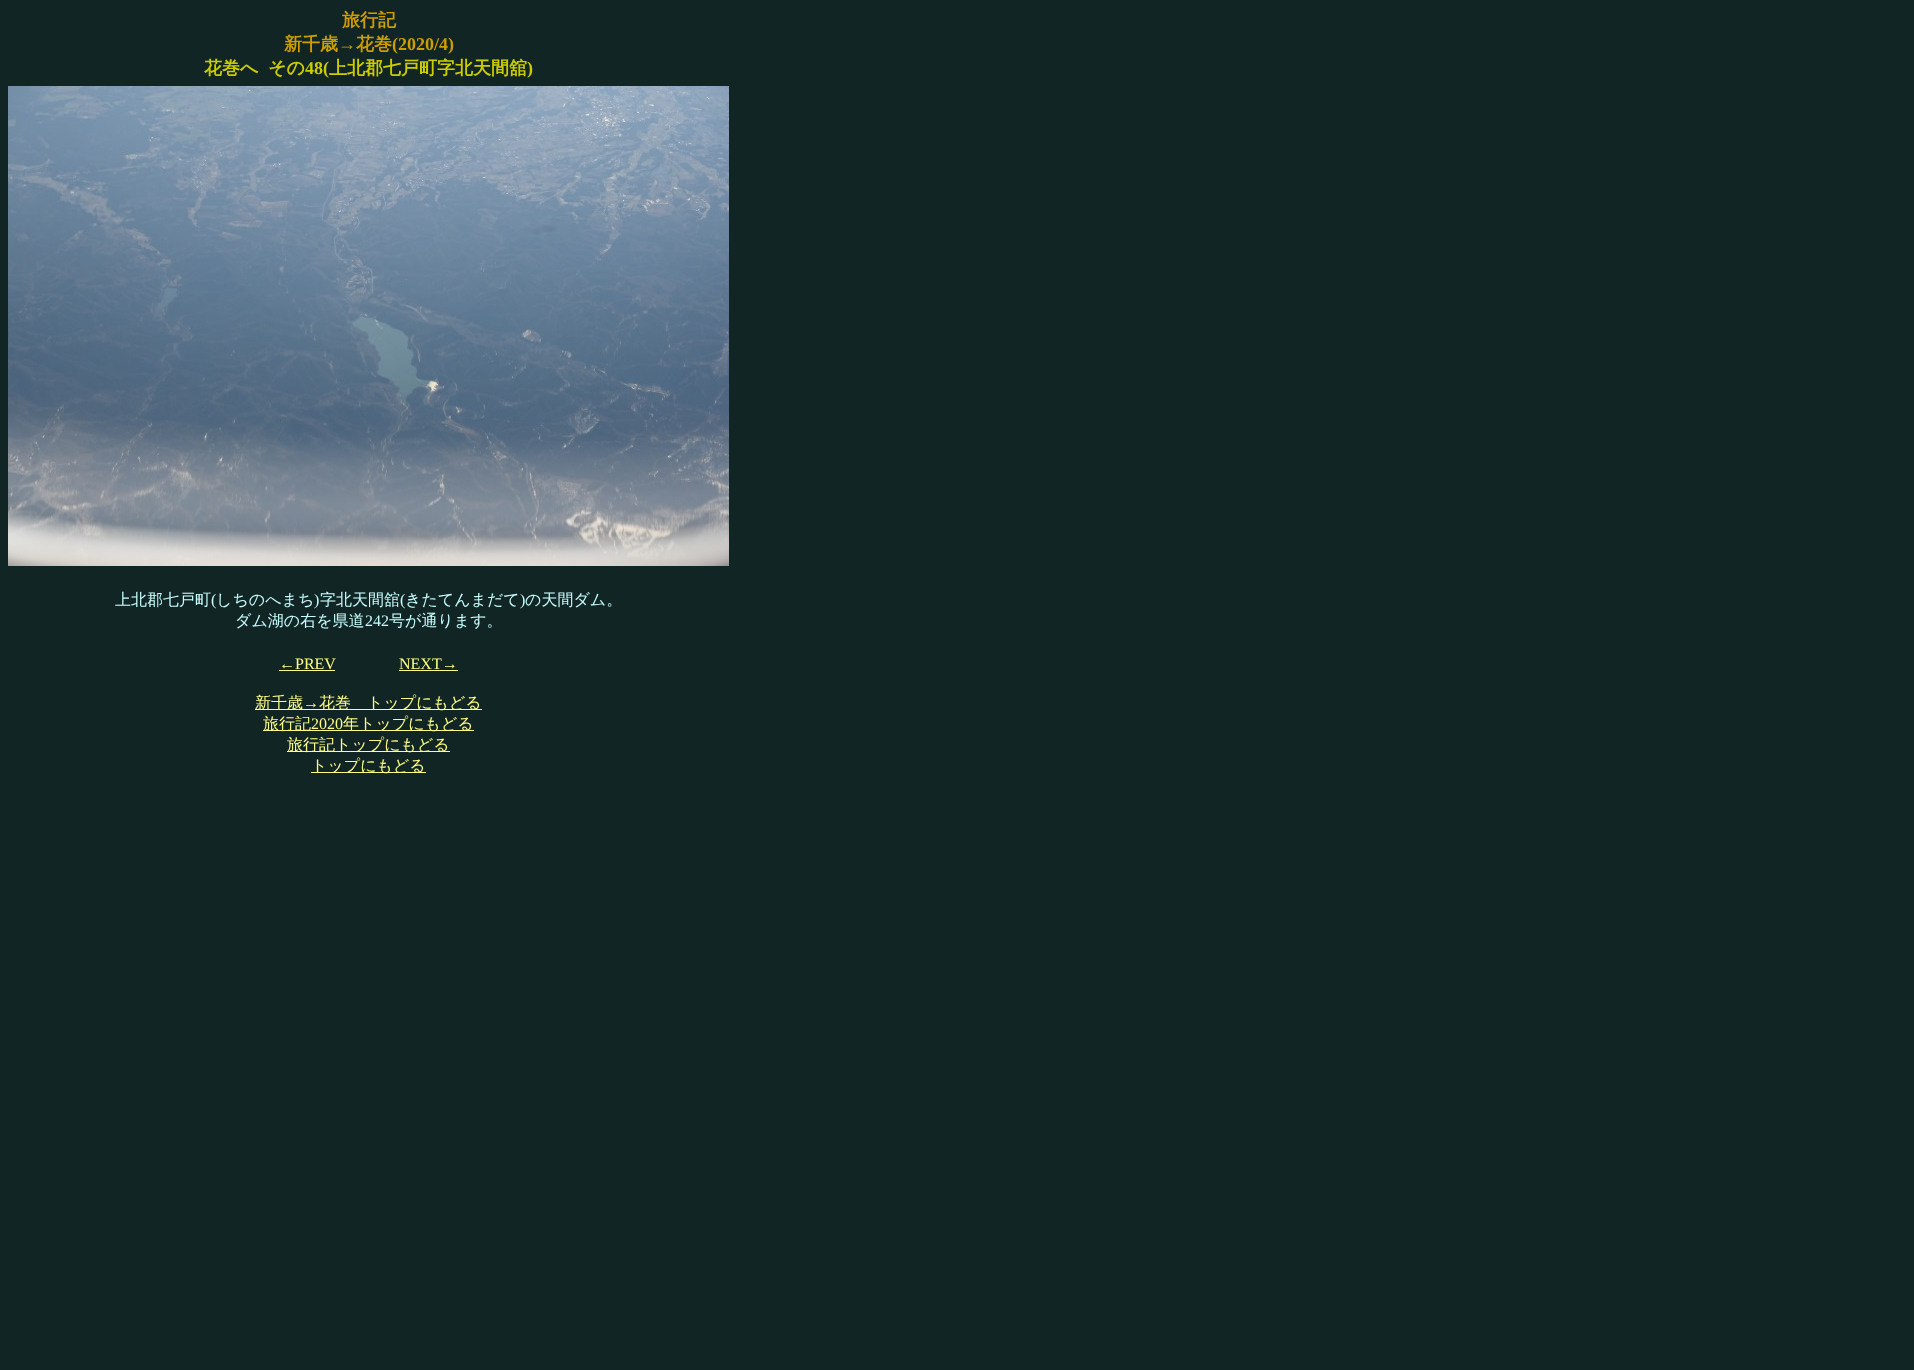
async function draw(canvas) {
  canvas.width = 1914
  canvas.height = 1370
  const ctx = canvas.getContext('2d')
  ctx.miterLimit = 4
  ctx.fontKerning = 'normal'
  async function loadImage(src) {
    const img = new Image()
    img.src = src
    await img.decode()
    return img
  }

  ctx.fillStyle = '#122525'
  ctx.fillRect(0, 0, 1914, 1370)
  ctx.font = 'bold 18px WenQuanYi Zen Hei'
  ctx.fillStyle = '#cc9e00'
  ctx.fillText('旅行記', 342, 26)
  ctx.fillText('新千歳', 284, 50)
  ctx.font = 'bold 18px Liberation Serif'
  ctx.fillText('→', 338, 50)
  ctx.font = 'bold 18px WenQuanYi Zen Hei'
  ctx.fillText('花巻', 356, 50)
  ctx.font = 'bold 18px Liberation Serif'
  ctx.fillText('(2020/4)', 392, 50)
  ctx.font = 'bold 18px WenQuanYi Zen Hei'
  ctx.fillStyle = '#cc0'
  ctx.fillText('花巻へ', 204, 74)
  ctx.fillText('その', 268, 74)
  ctx.font = 'bold 18px Liberation Serif'
  ctx.fillText('48(', 305, 74)
  ctx.font = 'bold 18px WenQuanYi Zen Hei'
  ctx.fillText('上北郡七戸町字北天間舘', 329, 74)
  ctx.font = 'bold 18px Liberation Serif'
  ctx.fillText(')', 527, 74)
  ctx.drawImage(await loadImage('image0.png'), 8, 86, 721, 480)
  ctx.font = '500 16px WenQuanYi Zen Hei'
  ctx.fillStyle = '#c8ffff'
  ctx.fillText('上北郡七戸町', 115, 605)
  ctx.font = '16px Liberation Serif'
  ctx.fillText('(', 211, 605)
  ctx.font = '500 16px WenQuanYi Zen Hei'
  ctx.fillText('しちのへまち', 216, 605)
  ctx.font = '16px Liberation Serif'
  ctx.fillText(')', 314, 605)
  ctx.font = '500 16px WenQuanYi Zen Hei'
  ctx.fillText('字北天間舘', 320, 605)
  ctx.font = '16px Liberation Serif'
  ctx.fillText('(', 400, 605)
  ctx.font = '500 16px WenQuanYi Zen Hei'
  ctx.fillText('きたてんまだて', 405, 605)
  ctx.font = '16px Liberation Serif'
  ctx.fillText(')', 520, 605)
  ctx.font = '500 16px WenQuanYi Zen Hei'
  ctx.fillText('の天間ダム。', 525, 605)
  ctx.fillText('ダム湖の右を県道', 235, 626)
  ctx.font = '16px Liberation Serif'
  ctx.fillText('242', 365, 626)
  ctx.font = '500 16px WenQuanYi Zen Hei'
  ctx.fillText('号が通ります。', 389, 626)
  ctx.font = '16px Liberation Serif'
  ctx.fillStyle = '#ffff84'
  ctx.fillText('←PREV', 279, 669)
  ctx.fillRect(279, 670, 56, 1)
  ctx.fillText('NEXT→', 399, 669)
  ctx.fillRect(399, 670, 59, 1)
  ctx.fillRect(255, 709, 227, 1)
  ctx.font = '500 16px WenQuanYi Zen Hei'
  ctx.fillText('新千歳', 255, 708)
  ctx.font = '16px Liberation Serif'
  ctx.fillText('→', 303, 708)
  ctx.font = '500 16px WenQuanYi Zen Hei'
  ctx.fillText('花巻　トップにもどる', 319, 708)
  ctx.fillRect(263, 730, 211, 1)
  ctx.fillText('旅行記', 263, 729)
  ctx.font = '16px Liberation Serif'
  ctx.fillText('2020', 311, 729)
  ctx.font = '500 16px WenQuanYi Zen Hei'
  ctx.fillText('年トップにもどる', 343, 729)
  ctx.fillRect(287, 751, 163, 1)
  ctx.fillText('旅行記トップにもどる', 287, 750)
  ctx.fillRect(311, 772, 115, 1)
  ctx.fillText('トップにもどる', 311, 771)
}

draw(document.querySelector('canvas'))
